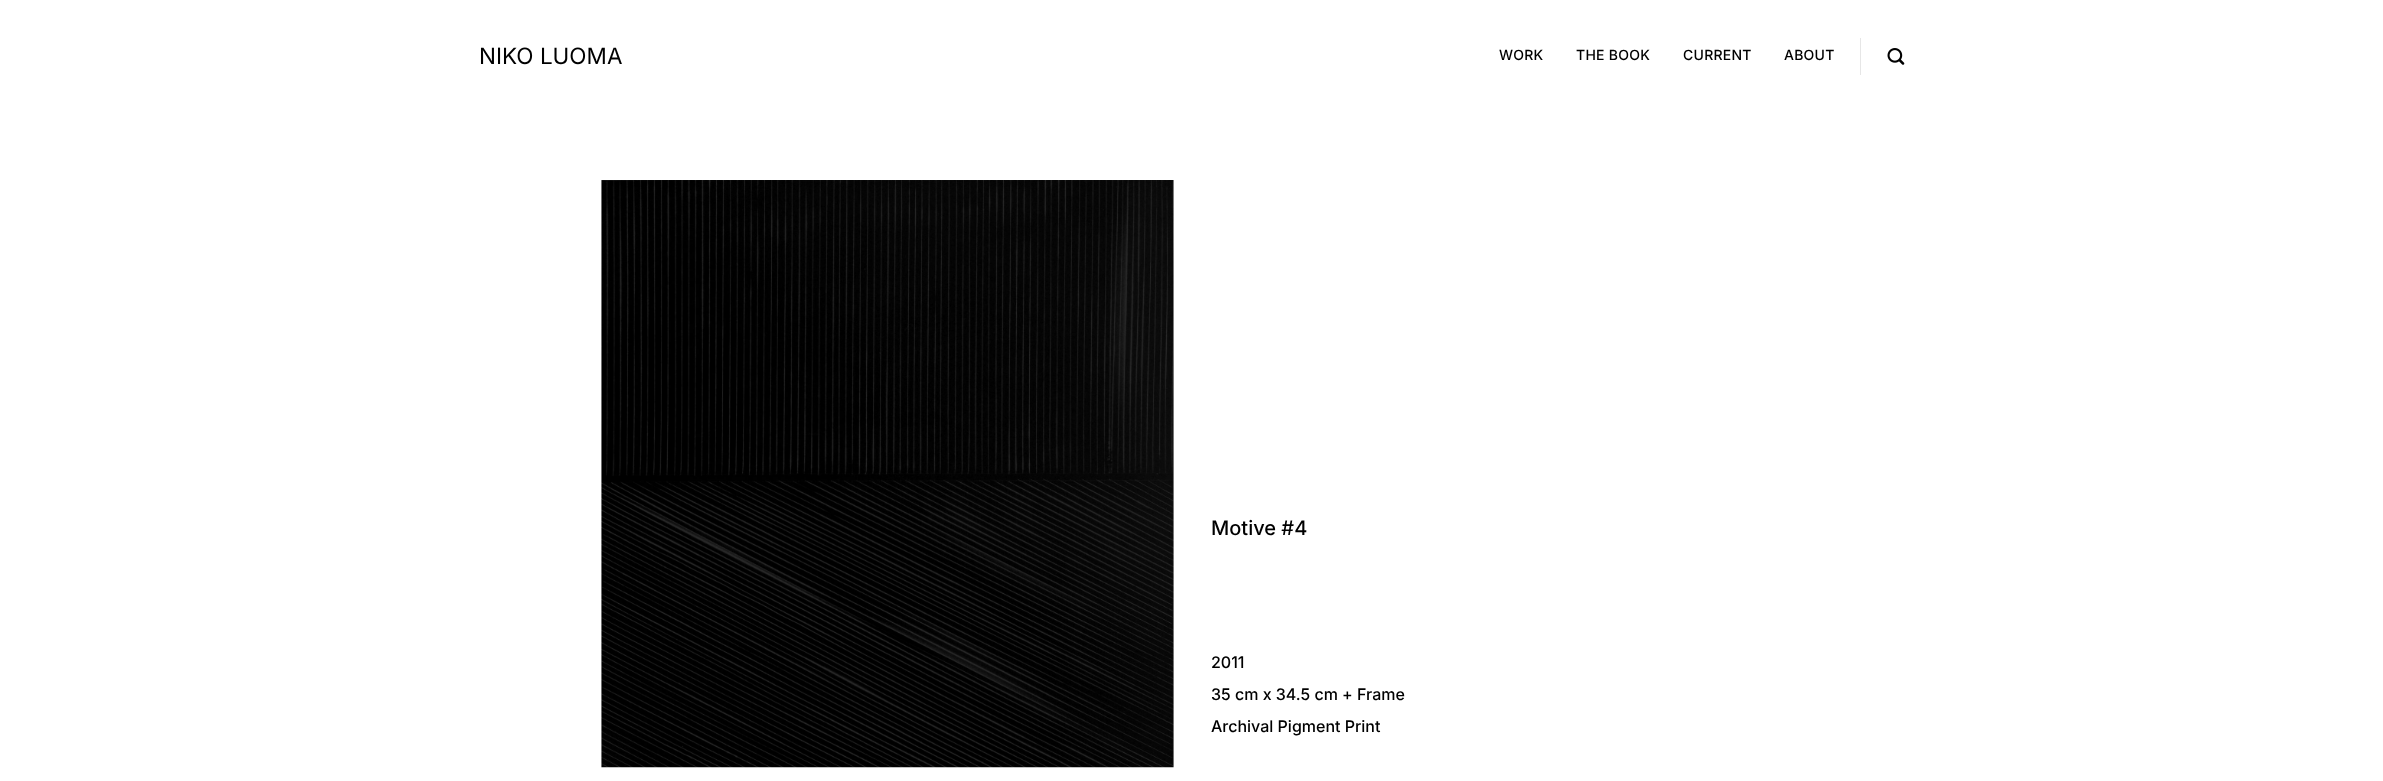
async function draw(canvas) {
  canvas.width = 2383
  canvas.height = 781
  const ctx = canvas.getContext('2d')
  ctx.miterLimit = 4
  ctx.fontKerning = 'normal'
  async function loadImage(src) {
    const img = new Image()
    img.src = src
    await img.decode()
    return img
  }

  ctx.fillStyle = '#fff'
  ctx.fillRect(0, 0, 2383, 781)
  ctx.font = '22.5px Inter'
  ctx.fillStyle = '#000'
  ctx.fillText('NIKO LUOMA', 479, 64)
  ctx.letterSpacing = '0.25px'
  ctx.font = '500 14px Inter'
  ctx.fillText('WORK', 1499, 60)
  ctx.fillText('THE BOOK', 1576, 60)
  ctx.fillText('CURRENT', 1683, 60)
  ctx.fillText('ABOUT', 1784, 60)
  ctx.fillStyle = '#e6e6e6'
  ctx.fillRect(1860, 38, 1, 37)
  ctx.drawImage(await loadImage('image0.png'), 1887, 48, 18, 17)
  ctx.drawImage(await loadImage('image1.png'), 601, 180, 573, 588)
  ctx.letterSpacing = '0px'
  ctx.font = '500 20px Inter'
  ctx.fillStyle = '#000'
  ctx.fillText('Motive #4', 1211, 535)
  ctx.font = '500 16px Inter'
  ctx.fillText('2011', 1211, 668)
  ctx.fillText('35 cm x 34.5 cm + Frame', 1211, 700)
  ctx.fillText('Archival Pigment Print', 1211, 732)
}

draw(document.querySelector('canvas'))
